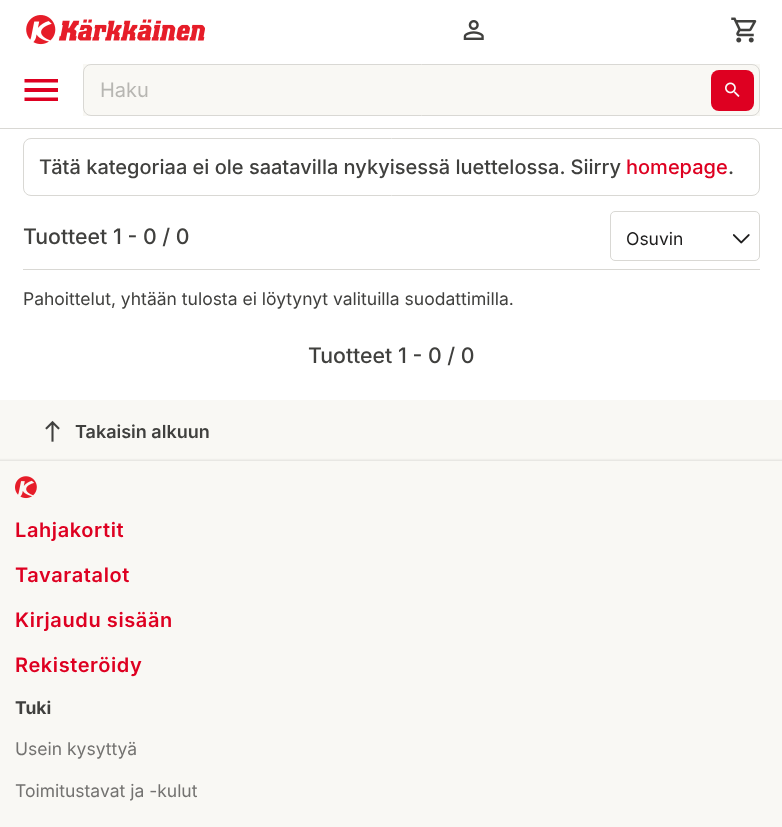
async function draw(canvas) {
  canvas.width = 782
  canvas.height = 827
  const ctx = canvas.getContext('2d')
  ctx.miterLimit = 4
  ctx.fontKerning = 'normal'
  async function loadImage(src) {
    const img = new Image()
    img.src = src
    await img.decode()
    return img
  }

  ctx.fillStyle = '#fff'
  ctx.fillRect(0, 0, 782, 827)
  ctx.fillStyle = '#d9d8d4'
  ctx.fillRect(0, 128, 782, 1)
  ctx.drawImage(await loadImage('image0.png'), 26, 15, 179, 30)
  ctx.drawImage(await loadImage('image1.png'), 463, 20, 21, 20)
  ctx.drawImage(await loadImage('image2.png'), 731, 17, 26, 26)
  ctx.fillStyle = '#de0021'
  ctx.beginPath()
  ctx.moveTo(24.5, 101)
  ctx.lineTo(58, 101)
  ctx.lineTo(58, 97.5)
  ctx.lineTo(24.5, 97.5)
  ctx.closePath()
  ctx.moveTo(24.5, 92)
  ctx.lineTo(58, 92)
  ctx.lineTo(58, 88)
  ctx.lineTo(24.5, 88)
  ctx.closePath()
  ctx.moveTo(24.5, 79)
  ctx.lineTo(24.5, 82.5)
  ctx.lineTo(58, 82.5)
  ctx.lineTo(58, 79)
  ctx.closePath()
  ctx.fill()
  ctx.fillStyle = '#f9f8f4'
  ctx.fillRect(83, 64, 677, 52)
  ctx.fillStyle = '#de0021'
  ctx.beginPath()
  ctx.roundRect(711, 70, 43, 41, 8)
  ctx.fill()
  ctx.drawImage(await loadImage('image3.png'), 725, 82, 15, 15)
  ctx.beginPath()
  ctx.roundRect(83.5, 64.5, 676, 51, 7.5)
  ctx.strokeStyle = '#d9d8d4'
  ctx.stroke()
  ctx.font = '20px Inter'
  ctx.fillStyle = '#b7b6b2'
  ctx.fillText('Haku', 100, 97)
  ctx.beginPath()
  ctx.roundRect(23.5, 138.5, 736, 57, 7.5)
  ctx.stroke()
  ctx.font = '500 20px Inter'
  ctx.fillStyle = '#40403e'
  ctx.fillText('Tätä kategoriaa ei ole saatavilla nykyisessä luettelossa. Siirry', 39, 174)
  ctx.fillStyle = '#de0021'
  ctx.fillText('homepage', 626, 174)
  ctx.fillStyle = '#40403e'
  ctx.fillText('.', 728, 174)
  ctx.fillStyle = '#d9d8d4'
  ctx.fillRect(23, 269, 737, 1)
  ctx.font = '500 21.25px Inter'
  ctx.fillStyle = '#40403e'
  ctx.fillText('Tuotteet 1 - 0 / 0', 23, 244)
  ctx.beginPath()
  ctx.roundRect(610.5, 211.5, 149, 49, 4.5)
  ctx.stroke()
  ctx.font = '17.5px Inter'
  ctx.fillStyle = '#1d1c1c'
  ctx.fillText('Osuvin', 626, 245)
  ctx.drawImage(await loadImage('image4.png'), 733, 234, 17, 10)
  ctx.fillStyle = '#40403e'
  ctx.fillText('Pahoittelut, yhtään tulosta ei löytynyt valituilla suodattimilla.', 23, 305)
  ctx.font = '500 21.25px Inter'
  ctx.fillText('Tuotteet 1 - 0 / 0', 308, 363)
  ctx.fillStyle = '#f9f8f4'
  ctx.fillRect(0, 400, 782, 61)
  ctx.drawImage(await loadImage('image5.png'), 45, 420, 15, 22)
  ctx.font = '600 18px Inter'
  ctx.fillStyle = '#40403e'
  ctx.fillText('Takaisin alkuun', 75, 438)
  ctx.fillStyle = '#0000001a'
  ctx.filter = 'blur(1px)'
  ctx.beginPath()
  ctx.rect(-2, 460, 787, 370)
  ctx.fill()
  ctx.filter = 'none'
  ctx.fillStyle = '#f9f8f4'
  ctx.fillRect(0, 461, 782, 366)
  ctx.drawImage(await loadImage('image6.png'), 15, 476, 22, 23)
  ctx.letterSpacing = '0.6px'
  ctx.font = '600 20px Inter'
  ctx.fillStyle = '#de0021'
  ctx.fillText('Lahjakortit', 15, 537)
  ctx.fillText('Tavaratalot', 15, 582)
  ctx.fillText('Kirjaudu sisään', 15, 627)
  ctx.fillText('Rekisteröidy', 15, 672)
  ctx.letterSpacing = '0px'
  ctx.font = 'bold 17.5px Inter'
  ctx.fillStyle = '#40403e'
  ctx.fillText('Tuki', 15, 714)
  ctx.font = '17.5px Inter'
  ctx.fillStyle = '#737270'
  ctx.fillText('Usein kysyttyä', 15, 755)
  ctx.fillText('Toimitustavat ja -kulut', 15, 797)
}

draw(document.querySelector('canvas'))
